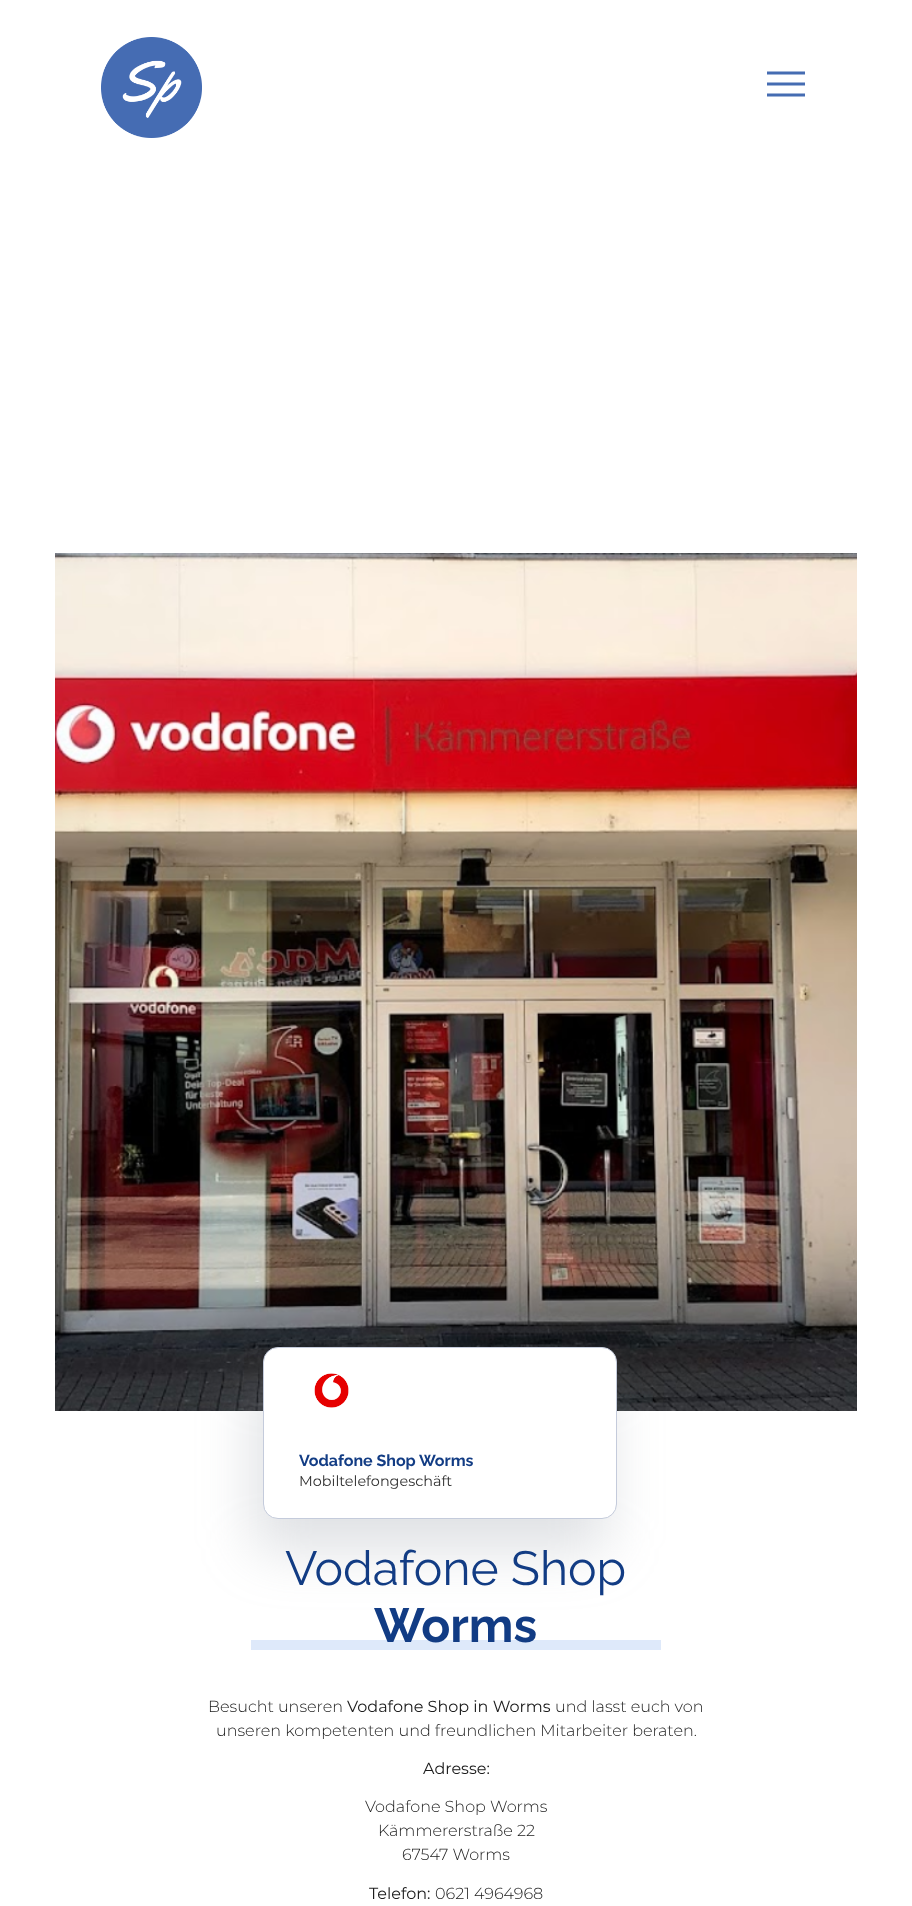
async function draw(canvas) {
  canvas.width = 912
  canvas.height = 1906
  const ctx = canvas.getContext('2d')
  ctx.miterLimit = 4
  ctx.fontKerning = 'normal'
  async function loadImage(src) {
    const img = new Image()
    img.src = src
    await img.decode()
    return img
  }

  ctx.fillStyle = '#fff'
  ctx.fillRect(0, 0, 912, 1906)
  ctx.drawImage(await loadImage('image0.png'), 101, 37, 101, 101)
  ctx.fillStyle = '#456cb2'
  ctx.beginPath()
  ctx.moveTo(767, 96.5)
  ctx.lineTo(767, 93.5)
  ctx.lineTo(805, 93.5)
  ctx.lineTo(805, 96.5)
  ctx.closePath()
  ctx.moveTo(767, 85.5)
  ctx.lineTo(767, 82.5)
  ctx.lineTo(805, 82.5)
  ctx.lineTo(805, 85.5)
  ctx.closePath()
  ctx.moveTo(767, 74.5)
  ctx.lineTo(767, 71.5)
  ctx.lineTo(805, 71.5)
  ctx.lineTo(805, 74.5)
  ctx.closePath()
  ctx.fill()
  ctx.drawImage(await loadImage('image1.png'), 55, 553, 802, 858)
  ctx.fillStyle = '#959ba64d'
  ctx.filter = 'blur(27px)'
  ctx.beginPath()
  ctx.roundRect(253, 1379, 354, 172, 15)
  ctx.fill()
  ctx.filter = 'none'
  ctx.fillStyle = '#fff'
  ctx.beginPath()
  ctx.roundRect(263.5, 1347.5, 353, 171, 14.5)
  ctx.fill()
  ctx.strokeStyle = '#c4cbdb'
  ctx.stroke()
  ctx.drawImage(await loadImage('image2.png'), 314, 1373, 35, 35)
  ctx.font = 'bold 16px Raleway'
  ctx.fillStyle = '#123c84'
  ctx.fillText('Vodafone Shop Worms', 299, 1466)
  ctx.font = '14.4px Montserrat'
  ctx.fillStyle = '#323232'
  ctx.fillText('Mobiltelefongeschäft', 299, 1486)
  ctx.font = '48px Raleway'
  ctx.fillStyle = '#123c84'
  ctx.fillText('Vodafone Shop', 285, 1585)
  ctx.fillStyle = '#dee9fa'
  ctx.fillRect(251, 1640, 410, 10)
  ctx.font = 'bold 48px Raleway'
  ctx.fillStyle = '#123c84'
  ctx.fillText('Worms', 374, 1642)
  ctx.font = '300 16px Montserrat'
  ctx.fillStyle = '#1c1c1c'
  ctx.fillText('Besucht unseren', 208, 1712)
  ctx.font = '16px Montserrat'
  ctx.fillText('Vodafone Shop in Worms', 347, 1712)
  ctx.font = '300 16px Montserrat'
  ctx.fillText('und lasst euch von', 555, 1712)
  ctx.fillText('unseren kompetenten und freundlichen Mitarbeiter beraten.', 216, 1736)
  ctx.font = '16px Montserrat'
  ctx.fillText('Adresse:', 423, 1774)
  ctx.font = '300 16px Montserrat'
  ctx.fillText('Vodafone Shop Worms', 365, 1812)
  ctx.fillText('Kämmererstraße 22', 378, 1836)
  ctx.fillText('67547 Worms', 402, 1860)
  ctx.font = '16px Montserrat'
  ctx.fillText('Telefon:', 369, 1899)
  ctx.font = '300 16px Montserrat'
  ctx.fillText('0621 4964968', 435, 1899)
}

draw(document.querySelector('canvas'))
